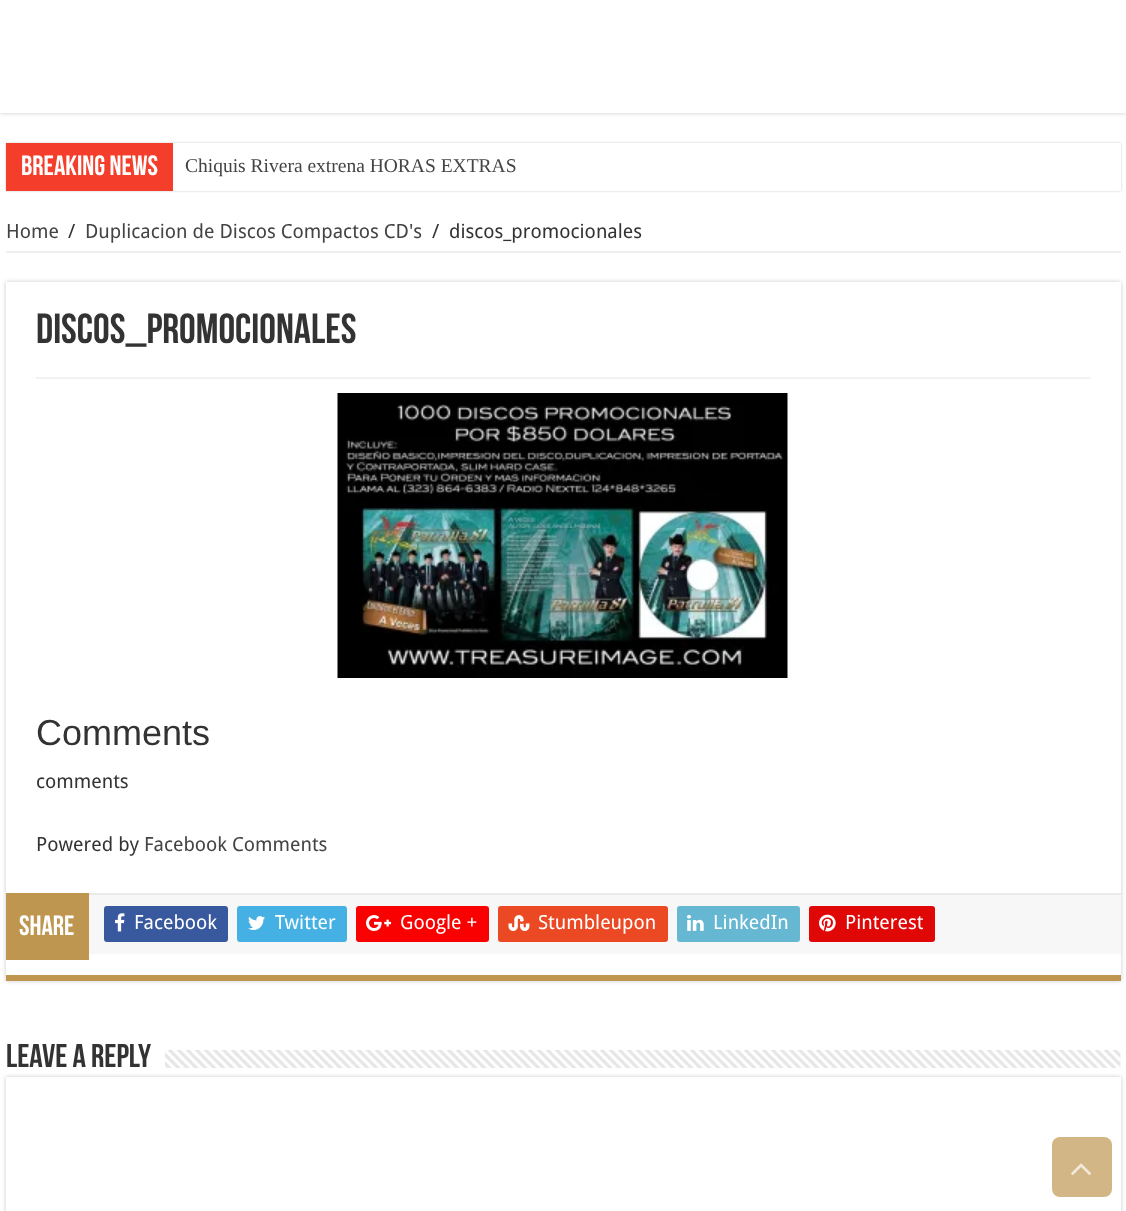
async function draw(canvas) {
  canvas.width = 1126
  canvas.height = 1211
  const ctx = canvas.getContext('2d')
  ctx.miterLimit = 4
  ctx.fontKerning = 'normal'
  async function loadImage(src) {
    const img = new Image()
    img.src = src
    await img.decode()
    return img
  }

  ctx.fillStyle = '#fff'
  ctx.fillRect(0, 0, 1126, 1211)
  ctx.fillStyle = '#cacaca'
  ctx.filter = 'blur(2px)'
  ctx.beginPath()
  ctx.rect(0, -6, 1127, 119)
  ctx.fill()
  ctx.filter = 'none'
  ctx.fillStyle = '#fff'
  ctx.fillRect(0, 0, 1126, 113)
  ctx.fillStyle = '#cacaca'
  ctx.filter = 'blur(1px)'
  ctx.beginPath()
  ctx.rect(6, 143, 1115, 48)
  ctx.fill()
  ctx.filter = 'none'
  ctx.fillStyle = '#fff'
  ctx.fillRect(173, 143, 948, 48)
  ctx.fillStyle = '#f43d2a'
  ctx.fillRect(6, 143, 167, 48)
  ctx.font = 'bold 28px Bebas Neue'
  ctx.fillStyle = '#fff'
  ctx.fillText('Breaking News', 21, 175)
  ctx.font = '19.5px Liberation Serif'
  ctx.fillStyle = '#444'
  ctx.fillText('Chiquis Rivera extrena HORAS EXTRAS', 185, 172)
  ctx.fillStyle = '#eee'
  ctx.fillRect(6, 251, 1115, 2)
  ctx.font = '19.5px Droid Sans'
  ctx.fillStyle = '#444'
  ctx.fillText('Home', 6, 238)
  ctx.fillStyle = '#333'
  ctx.fillText('/', 68, 238)
  ctx.fillStyle = '#444'
  ctx.fillText('Duplicacion de Discos Compactos CD\'s', 85, 238)
  ctx.fillStyle = '#333'
  ctx.fillText('/', 432, 238)
  ctx.fillText('discos_promocionales', 449, 238)
  ctx.fillStyle = '#cacaca'
  ctx.filter = 'blur(2px)'
  ctx.beginPath()
  ctx.rect(6, 282, 1115, 699)
  ctx.fill()
  ctx.filter = 'none'
  ctx.fillStyle = '#fff'
  ctx.fillRect(6, 282, 1115, 693)
  ctx.fillStyle = '#bf9650'
  ctx.fillRect(6, 975, 1115, 6)
  ctx.font = 'bold 42px Bebas Neue'
  ctx.fillStyle = '#333'
  ctx.fillText('discos_promocionales', 36, 343)
  ctx.fillStyle = '#f2f2f2'
  ctx.fillRect(36, 377, 1055, 2)
  ctx.drawImage(await loadImage('image0.png'), 337, 393, 451, 285)
  ctx.font = '36px Liberation Sans'
  ctx.fillStyle = '#333'
  ctx.fillText('Comments', 36, 745)
  ctx.font = '19.5px Droid Sans'
  ctx.fillText('comments', 36, 788)
  ctx.fillText('Powered by', 36, 851)
  ctx.fillStyle = '#444'
  ctx.fillText('Facebook Comments', 144, 851)
  ctx.fillStyle = '#f7f7f7'
  ctx.fillRect(89, 895, 1032, 59)
  ctx.fillStyle = '#eaeaea'
  ctx.fillRect(89, 893, 1032, 2)
  ctx.fillStyle = '#bf9650'
  ctx.fillRect(6, 893, 83, 67)
  ctx.font = 'bold 28px Bebas Neue'
  ctx.fillStyle = '#fff'
  ctx.fillText('Share', 19, 935)
  ctx.fillStyle = '#39599f'
  ctx.beginPath()
  ctx.roundRect(104, 906, 124, 36, 3)
  ctx.fill()
  ctx.drawImage(await loadImage('image1.png'), 115, 913, 10, 19)
  ctx.font = '19.5px Droid Sans'
  ctx.fillStyle = '#fff'
  ctx.fillText('Facebook', 134, 929)
  ctx.fillStyle = '#45b0e3'
  ctx.beginPath()
  ctx.roundRect(237, 906, 110, 36, 3)
  ctx.fill()
  ctx.drawImage(await loadImage('image2.png'), 248, 916, 17, 14)
  ctx.fillStyle = '#fff'
  ctx.fillText('Twitter', 275, 929)
  ctx.fillStyle = '#fa0101'
  ctx.beginPath()
  ctx.roundRect(356, 906, 133, 36, 3)
  ctx.fill()
  ctx.drawImage(await loadImage('image3.png'), 366, 915, 26, 16)
  ctx.fillStyle = '#fff'
  ctx.fillText('Google +', 400, 929)
  ctx.fillStyle = '#eb4924'
  ctx.beginPath()
  ctx.roundRect(498, 906, 170, 36, 3)
  ctx.fill()
  ctx.drawImage(await loadImage('image4.png'), 508, 915, 22, 16)
  ctx.fillStyle = '#fff'
  ctx.fillText('Stumbleupon', 538, 929)
  ctx.fillStyle = '#65b7d2'
  ctx.beginPath()
  ctx.roundRect(677, 906, 123, 36, 3)
  ctx.fill()
  ctx.drawImage(await loadImage('image5.png'), 687, 914, 17, 17)
  ctx.fillStyle = '#fff'
  ctx.fillText('LinkedIn', 713, 929)
  ctx.fillStyle = '#e00707'
  ctx.beginPath()
  ctx.roundRect(809, 906, 126, 36, 3)
  ctx.fill()
  ctx.drawImage(await loadImage('image6.png'), 819, 914, 17, 18)
  ctx.fillStyle = '#fff'
  ctx.fillText('Pinterest', 845, 929)
  ctx.font = 'bold 33px Bebas Neue'
  ctx.fillStyle = '#333'
  ctx.fillText('Leave a Reply', 6, 1067)
  ctx.drawImage(await loadImage('image7.png'), 165, 1050, 956, 18)
  ctx.fillStyle = '#cacaca'
  ctx.filter = 'blur(2px)'
  ctx.beginPath()
  ctx.rect(6, 1077, 1115, 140)
  ctx.fill()
  ctx.filter = 'none'
  ctx.fillStyle = '#fff'
  ctx.fillRect(6, 1077, 1115, 134)
  ctx.fillStyle = '#d2b685'
  ctx.beginPath()
  ctx.roundRect(1052, 1137, 60, 60, 8)
  ctx.fill()
  ctx.drawImage(await loadImage('image8.png'), 1071, 1163, 20, 12)
}

draw(document.querySelector('canvas'))
